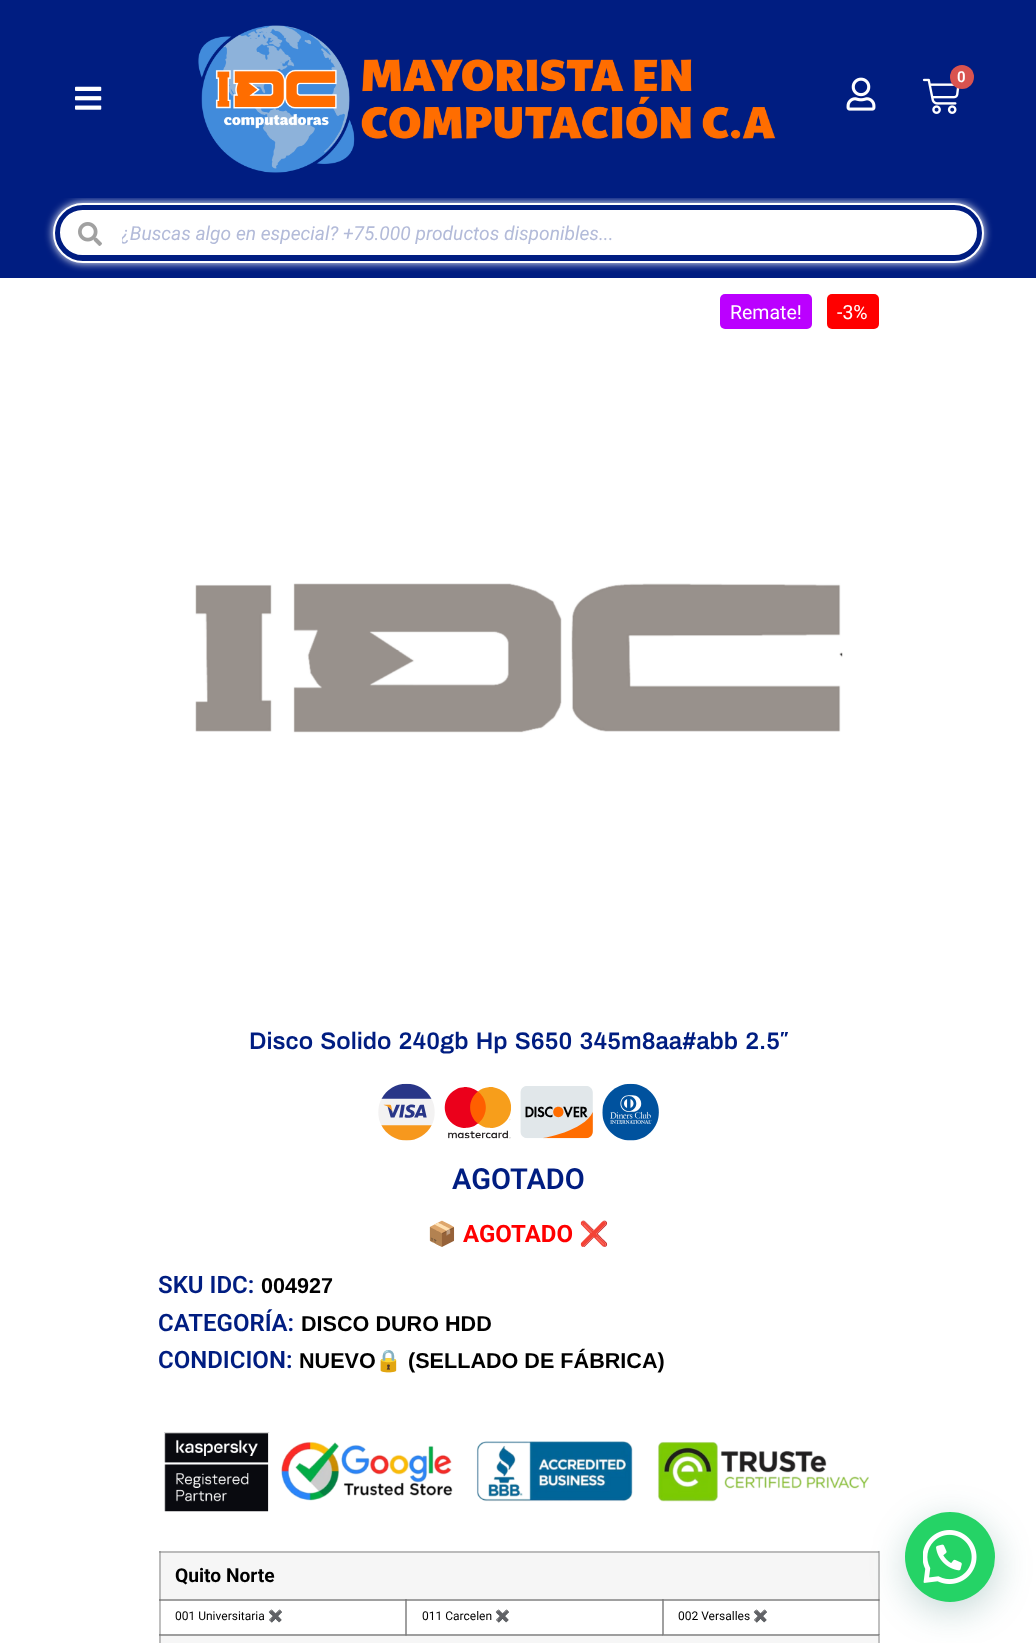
async function draw(canvas) {
  canvas.width = 1036
  canvas.height = 1643
  const ctx = canvas.getContext('2d')
  ctx.miterLimit = 4
  ctx.fontKerning = 'normal'
  async function loadImage(src) {
    const img = new Image()
    img.src = src
    await img.decode()
    return img
  }

  ctx.fillStyle = '#fff'
  ctx.fillRect(0, 0, 1036, 1643)
  ctx.fillStyle = '#c0c0c0'
  ctx.fillRect(878, 1551, 2, 92)
  ctx.fillStyle = '#a0a0a0'
  ctx.fillRect(878, 1551, 1, 2)
  ctx.fillStyle = '#c0c0c0'
  ctx.fillRect(159, 1599, 2, 36)
  ctx.fillStyle = '#a0a0a0'
  ctx.fillRect(159, 1599, 248, 2)
  ctx.fillStyle = '#888'
  ctx.fillRect(159, 1599, 2, 2)
  ctx.fillStyle = '#a0a0a0'
  ctx.fillRect(405, 1599, 2, 36)
  ctx.fillRect(405, 1599, 258, 2)
  ctx.fillStyle = '#848484'
  ctx.fillRect(405, 1599, 2, 2)
  ctx.fillStyle = '#a0a0a0'
  ctx.fillRect(662, 1599, 2, 36)
  ctx.fillRect(662, 1599, 218, 2)
  ctx.fillRect(878, 1634, 2, 1)
  ctx.fillStyle = '#909090'
  ctx.fillRect(878, 1634, 1, 2)
  ctx.fillStyle = '#888'
  ctx.fillRect(878, 1634, 1, 1)
  ctx.fillStyle = '#001d81'
  ctx.fillRect(0, 198, 1036, 80)
  ctx.fillStyle = '#fff'
  ctx.filter = 'blur(4px)'
  ctx.beginPath()
  ctx.roundRect(53, 203, 931, 60, 30)
  ctx.fill()
  ctx.filter = 'none'
  ctx.fillStyle = '#001d81'
  ctx.fillRect(0, 0, 1036, 198)
  ctx.drawImage(await loadImage('image0.png'), 75, 86, 27, 24)
  ctx.drawImage(await loadImage('image1.png'), 198, 25, 578, 148)
  ctx.drawImage(await loadImage('image2.png'), 846, 77, 30, 34)
  ctx.drawImage(await loadImage('image3.png'), 922, 78, 38, 36)
  ctx.fillStyle = '#d9534f'
  ctx.beginPath()
  ctx.arc(962, 77, 12, 0, 2 * Math.PI)
  ctx.fill()
  ctx.font = '600 15px Roboto'
  ctx.fillStyle = '#fff'
  ctx.fillText('0', 957, 82)
  ctx.fillStyle = '#001d81'
  ctx.beginPath()
  ctx.roundRect(54, 204, 929, 58, 29)
  ctx.fill()
  ctx.strokeStyle = '#fff'
  ctx.lineWidth = 2
  ctx.stroke()
  ctx.fillStyle = '#fff'
  ctx.beginPath()
  ctx.roundRect(61, 211, 915, 43, 21.5)
  ctx.fill()
  ctx.stroke()
  ctx.drawImage(await loadImage('image4.png'), 78, 222, 24, 24)
  ctx.save()
  ctx.beginPath()
  ctx.rect(122, 222, 831, 23)
  ctx.clip()
  ctx.font = 'italic 19.2px Roboto'
  ctx.fillStyle = '#b3bbd9'
  ctx.fillText('¿Buscas algo en especial? +75.000 productos disponibles...', 121, 240)
  ctx.restore()
  ctx.fillStyle = '#b0f'
  ctx.beginPath()
  ctx.roundRect(720, 294, 92, 35, 5)
  ctx.fill()
  ctx.font = '19.5px Roboto'
  ctx.fillStyle = '#fff'
  ctx.fillText('Remate!', 730, 319)
  ctx.fillStyle = '#f00'
  ctx.beginPath()
  ctx.roundRect(827, 294, 52, 35, 5)
  ctx.fill()
  ctx.fillStyle = '#fff'
  ctx.fillText('-3%', 837, 319)
  ctx.drawImage(await loadImage('image5.png'), 195, 583, 648, 150)
  ctx.wordSpacing = '2.5px'
  ctx.font = '600 24px Archivo'
  ctx.fillStyle = '#001d81'
  ctx.fillText('Disco Solido 240gb Hp S650 345m8aa#abb 2.5″', 249, 1049)
  ctx.drawImage(await loadImage('image6.png'), 378, 1083, 281, 58)
  ctx.wordSpacing = '0px'
  ctx.font = '600 29px Roboto'
  ctx.fillText('AGOTADO', 452, 1189)
  ctx.font = 'bold 24px Noto Color Emoji'
  ctx.fillStyle = '#f00'
  ctx.fillText('📦', 427, 1242)
  ctx.font = 'bold 24px Roboto'
  ctx.fillText('AGOTADO', 463, 1242)
  ctx.font = 'bold 24px Noto Color Emoji'
  ctx.fillText('❌', 579, 1242)
  ctx.font = '600 24px Roboto'
  ctx.fillStyle = '#001d81'
  ctx.fillText('SKU IDC:', 158, 1293)
  ctx.font = 'bold 21.6px Liberation Sans'
  ctx.fillStyle = '#000'
  ctx.fillText('004927', 261, 1293)
  ctx.font = '600 24px Roboto'
  ctx.fillStyle = '#001d81'
  ctx.fillText('CATEGORÍA:', 158, 1331)
  ctx.font = 'bold 21.6px Liberation Sans'
  ctx.fillStyle = '#000'
  ctx.fillText('DISCO DURO HDD', 301, 1331)
  ctx.font = '600 24px Roboto'
  ctx.fillStyle = '#001d81'
  ctx.fillText('CONDICION:', 158, 1368)
  ctx.font = 'bold 21.6px Liberation Sans'
  ctx.fillStyle = '#000'
  ctx.fillText('NUEVO', 299, 1368)
  ctx.font = 'bold 21.6px Noto Color Emoji'
  ctx.fillText('🔒', 375, 1368)
  ctx.font = 'bold 21.6px Liberation Sans'
  ctx.fillText('(SELLADO DE FÁBRICA)', 408, 1368)
  ctx.drawImage(await loadImage('image7.png'), 164, 1432, 705, 80)
  ctx.fillStyle = '#f6f6f6'
  ctx.fillRect(161, 1553, 717, 46)
  ctx.fillStyle = '#bbb'
  ctx.fillRect(159, 1551, 2, 48)
  ctx.fillRect(159, 1551, 719, 2)
  ctx.fillStyle = '#9e9e9e'
  ctx.fillRect(159, 1551, 2, 2)
  ctx.font = 'bold 19.2px Roboto'
  ctx.fillStyle = '#000'
  ctx.fillText('Quito Norte', 175, 1582)
  ctx.font = '12px Roboto'
  ctx.fillText('001 Universitaria', 175, 1620)
  ctx.font = '12px Noto Color Emoji'
  ctx.fillStyle = '#f00'
  ctx.fillText('✖', 268, 1620)
  ctx.font = '12px Roboto'
  ctx.fillStyle = '#000'
  ctx.fillText('011 Carcelen', 422, 1620)
  ctx.font = '12px Noto Color Emoji'
  ctx.fillStyle = '#f00'
  ctx.fillText('✖', 495, 1620)
  ctx.fillStyle = '#888'
  ctx.fillRect(662, 1599, 2, 2)
  ctx.fillStyle = '#848484'
  ctx.fillRect(662, 1599, 1, 2)
  ctx.fillStyle = '#888'
  ctx.fillRect(878, 1599, 1, 2)
  ctx.font = '12px Roboto'
  ctx.fillStyle = '#000'
  ctx.fillText('002 Versalles', 678, 1620)
  ctx.font = '12px Noto Color Emoji'
  ctx.fillStyle = '#f00'
  ctx.fillText('✖', 753, 1620)
  ctx.fillStyle = '#f6f6f6'
  ctx.fillRect(161, 1636, 717, 7)
  ctx.fillStyle = '#bbb'
  ctx.fillRect(159, 1634, 2, 9)
  ctx.fillStyle = '#9e9e9e'
  ctx.fillRect(159, 1634, 719, 2)
  ctx.fillStyle = '#8f8f8f'
  ctx.fillRect(405, 1635, 2, 1)
  ctx.fillStyle = '#848484'
  ctx.fillRect(405, 1634, 2, 1)
  ctx.fillStyle = '#8f8f8f'
  ctx.fillRect(662, 1634, 1, 2)
  ctx.fillStyle = '#888'
  ctx.fillRect(662, 1634, 2, 1)
  ctx.fillStyle = '#848484'
  ctx.fillRect(662, 1634, 1, 1)
  ctx.fillStyle = '#8f8f8f'
  ctx.fillRect(159, 1635, 2, 1)
  ctx.fillStyle = '#888'
  ctx.fillRect(159, 1634, 2, 1)
  ctx.fillStyle = '#075e543d'
  ctx.filter = 'blur(18px)'
  ctx.beginPath()
  ctx.roundRect(906, 1521, 90, 90, 45)
  ctx.fill()
  ctx.filter = 'none'
  ctx.fillStyle = '#25d366'
  ctx.beginPath()
  ctx.arc(950, 1557, 45, 0, 2 * Math.PI)
  ctx.fill()
  ctx.drawImage(await loadImage('image8.png'), 923, 1530, 54, 54)
}

draw(document.querySelector('canvas'))
